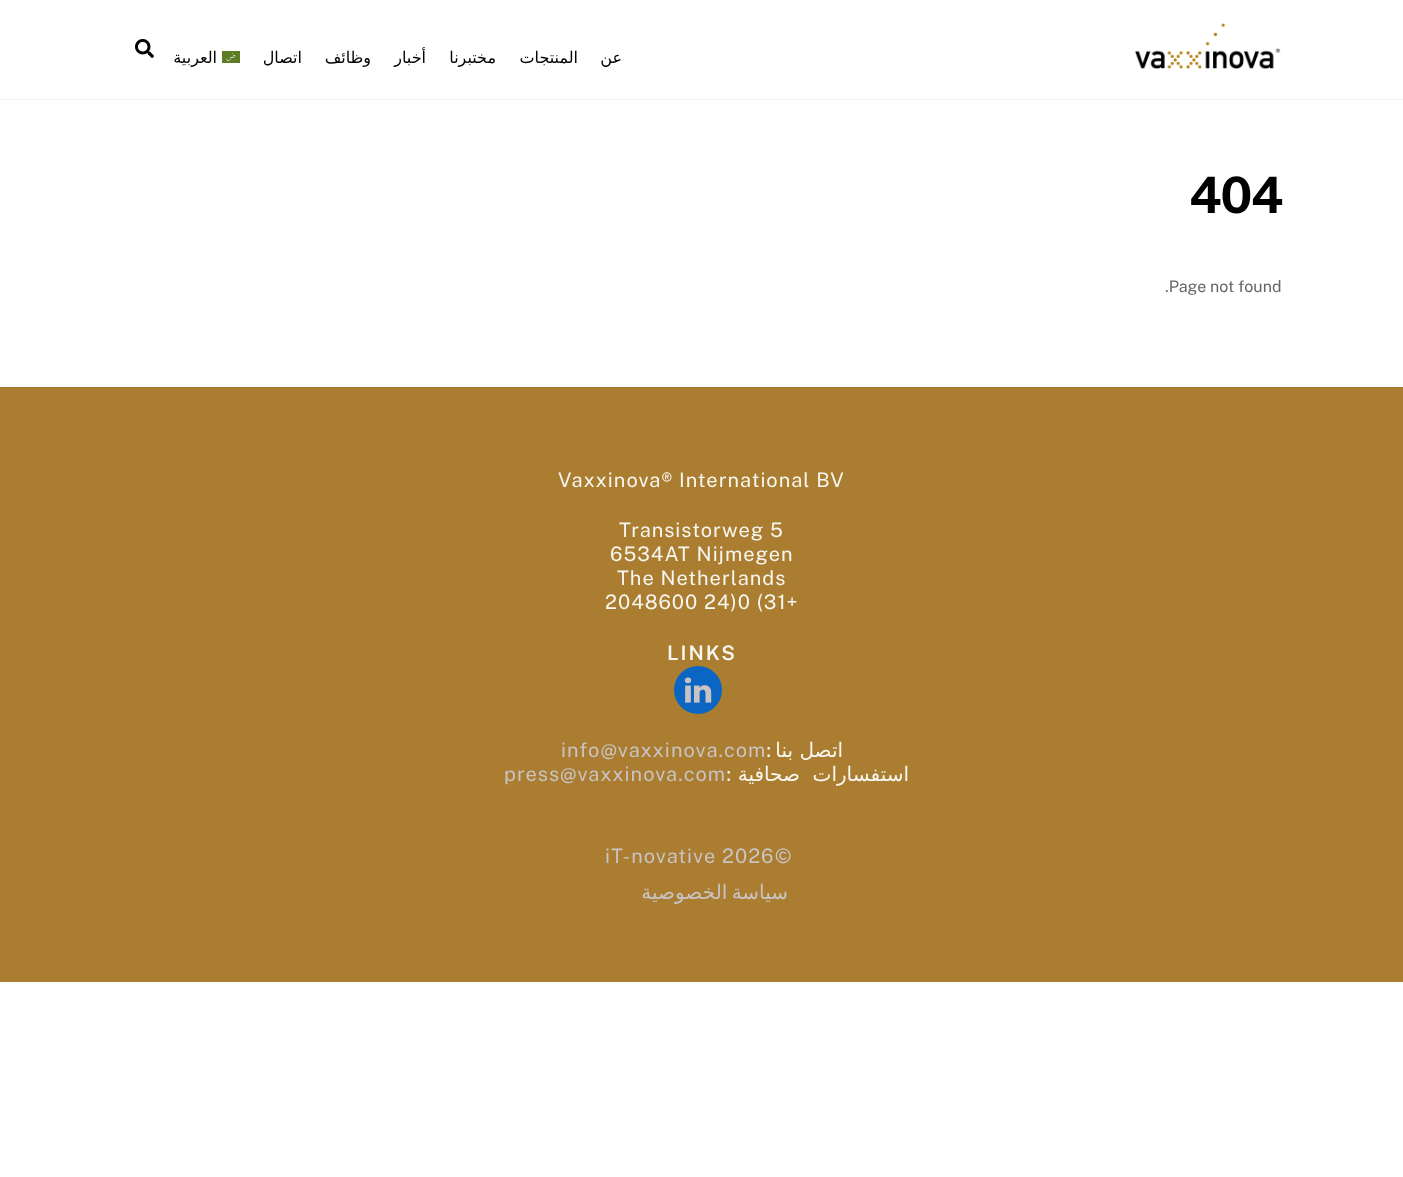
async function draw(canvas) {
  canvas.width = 1403
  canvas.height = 1177
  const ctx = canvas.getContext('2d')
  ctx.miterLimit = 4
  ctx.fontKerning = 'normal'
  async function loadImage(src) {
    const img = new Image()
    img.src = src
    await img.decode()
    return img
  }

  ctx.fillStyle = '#fff'
  ctx.fillRect(0, 0, 1403, 1177)
  ctx.fillStyle = '#f2f2f2'
  ctx.fillRect(0, 99, 1403, 1)
  ctx.drawImage(await loadImage('image0.png'), 135, 39, 19, 19)
  ctx.direction = 'rtl'
  ctx.font = '16px DejaVu Sans'
  ctx.fillStyle = '#000'
  ctx.fillText('العربية', 217, 63)
  ctx.drawImage(await loadImage('image1.png'), 222, 51, 18, 12)
  ctx.fillText('اتصال', 302, 63)
  ctx.fillText('وظائف', 371, 63)
  ctx.fillText('أخبار', 426, 63)
  ctx.fillText('مختبرنا', 496, 63)
  ctx.fillText('المنتجات', 578, 63)
  ctx.fillText('عن', 622, 63)
  ctx.drawImage(await loadImage('image2.png'), 1134, 23, 147, 47)
  ctx.letterSpacing = '-1.5px'
  ctx.direction = 'ltr'
  ctx.font = 'bold 50px Public Sans'
  ctx.fillText('404', 1189, 213)
  ctx.letterSpacing = '0px'
  ctx.font = '16px Public Sans'
  ctx.fillStyle = '#666'
  ctx.fillText('.Page not found', 1165, 292)
  ctx.fillStyle = '#aa7d30'
  ctx.fillRect(0, 388, 1403, 594)
  ctx.fillStyle = '#a2772e'
  ctx.fillRect(0, 387, 1403, 1)
  ctx.letterSpacing = '1px'
  ctx.font = '20px Public Sans'
  ctx.fillStyle = '#f7f6f0'
  ctx.fillText('Vaxxinova® International BV', 558, 487)
  ctx.fillText('Transistorweg 5', 619, 537)
  ctx.fillText('6534AT Nijmegen', 610, 561)
  ctx.fillText('The Netherlands', 617, 585)
  ctx.fillText('2048600 24)0 (31+', 605, 609)
  ctx.letterSpacing = '2px'
  ctx.font = '600 20px Public Sans'
  ctx.fillText('LINKS', 667, 660)
  ctx.fillStyle = '#0a66c2'
  ctx.beginPath()
  ctx.arc(698, 690, 24, 0, 2 * Math.PI)
  ctx.fill()
  ctx.drawImage(await loadImage('image3.png'), 684, 677, 28, 26)
  ctx.letterSpacing = '1px'
  ctx.font = '20px Public Sans'
  ctx.fillStyle = '#c9c3c3'
  ctx.fillText('info@vaxxinova.com', 561, 757)
  ctx.direction = 'rtl'
  ctx.fillStyle = '#f7f6f0'
  ctx.fillText(':', 772, 757)
  ctx.font = '20px DejaVu Sans'
  ctx.fillText('بنا', 793, 757)
  ctx.fillText('اتصل', 843, 757)
  ctx.direction = 'ltr'
  ctx.font = '20px Public Sans'
  ctx.fillStyle = '#c9c3c3'
  ctx.fillText('press@vaxxinova.com', 504, 781)
  ctx.direction = 'rtl'
  ctx.fillStyle = '#f7f6f0'
  ctx.fillText(':', 732, 781)
  ctx.font = '20px DejaVu Sans'
  ctx.fillText('صحافية', 800, 781)
  ctx.fillText('استفسارات', 909, 781)
  ctx.direction = 'ltr'
  ctx.font = '20px Public Sans'
  ctx.fillStyle = '#c9c3c3'
  ctx.fillText('iT-novative 2026', 605, 863)
  ctx.fillText('©', 775, 863)
  ctx.wordSpacing = '-3px'
  ctx.direction = 'rtl'
  ctx.font = '20px DejaVu Sans'
  ctx.fillText('سياسة الخصوصية', 788, 899)
}

draw(document.querySelector('canvas'))
